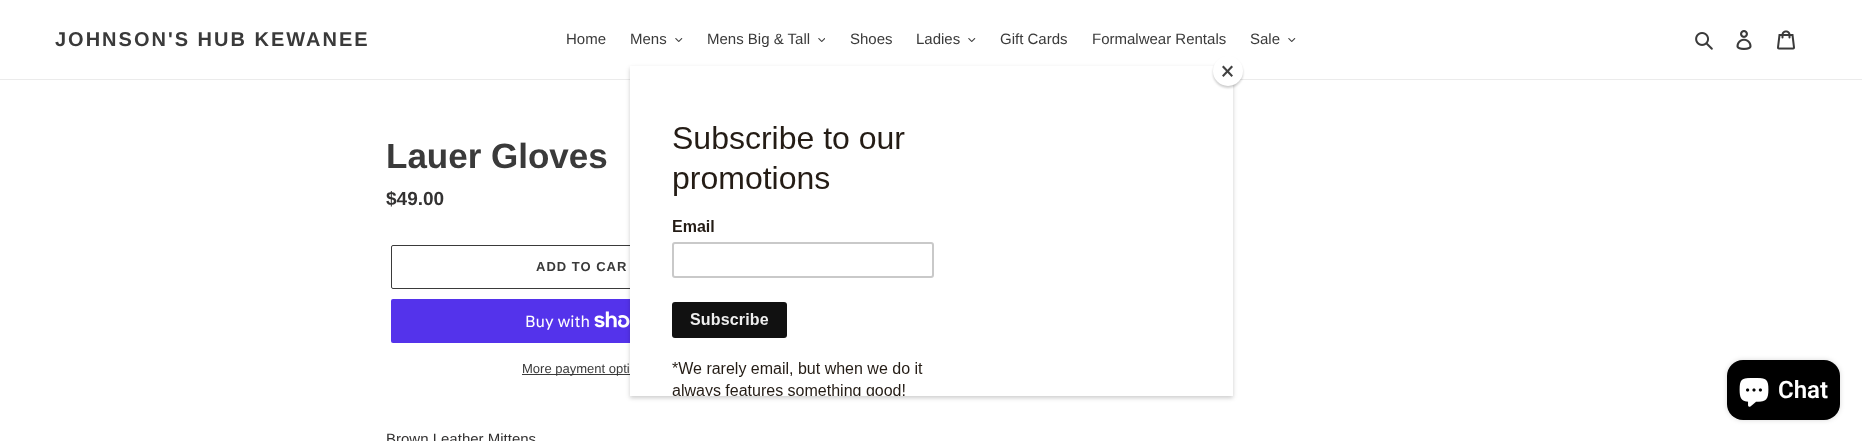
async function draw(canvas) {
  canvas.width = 1862
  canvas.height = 441
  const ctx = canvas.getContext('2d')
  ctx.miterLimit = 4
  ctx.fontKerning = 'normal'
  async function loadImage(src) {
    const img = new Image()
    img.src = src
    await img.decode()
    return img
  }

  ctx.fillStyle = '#fff'
  ctx.fillRect(0, 0, 1862, 441)
  ctx.fillStyle = '#ebebeb'
  ctx.fillRect(0, 79, 1862, 1)
  ctx.letterSpacing = '2px'
  ctx.font = 'bold 20px Liberation Sans'
  ctx.fillStyle = '#3a3a3a'
  ctx.fillText('JOHNSON\'S HUB KEWANEE', 55, 46)
  ctx.letterSpacing = '0px'
  ctx.font = '15px Liberation Sans'
  ctx.fillText('Home', 566, 44)
  ctx.fillText('Mens', 630, 44)
  ctx.drawImage(await loadImage('image0.png'), 675, 38, 8, 4)
  ctx.fillText('Mens Big & Tall', 707, 44)
  ctx.drawImage(await loadImage('image1.png'), 818, 38, 7, 4)
  ctx.fillText('Shoes', 850, 44)
  ctx.fillText('Ladies', 916, 44)
  ctx.drawImage(await loadImage('image0.png'), 968, 38, 8, 4)
  ctx.fillText('Gift Cards', 1000, 44)
  ctx.fillText('Formalwear Rentals', 1092, 44)
  ctx.fillText('Sale', 1250, 44)
  ctx.drawImage(await loadImage('image0.png'), 1288, 38, 8, 4)
  ctx.drawImage(await loadImage('image2.png'), 1695, 32, 18, 18)
  ctx.drawImage(await loadImage('image3.png'), 1736, 30, 16, 20)
  ctx.drawImage(await loadImage('image4.png'), 1777, 30, 18, 20)
  ctx.font = 'bold 35px Liberation Sans'
  ctx.fillText('Lauer Gloves', 386, 168)
  ctx.font = 'bold 19px Liberation Sans'
  ctx.fillStyle = '#333232'
  ctx.fillText('$49.00', 386, 205)
  ctx.beginPath()
  ctx.roundRect(391.5, 245.5, 389, 43, 1.5)
  ctx.strokeStyle = '#3a3a3a'
  ctx.stroke()
  ctx.letterSpacing = '1px'
  ctx.font = 'bold 13px Liberation Sans'
  ctx.fillStyle = '#3a3a3a'
  ctx.fillText('ADD TO CAR', 536, 271)
  ctx.fillStyle = '#5433eb'
  ctx.beginPath()
  ctx.roundRect(391, 299, 390, 44, 2)
  ctx.fill()
  ctx.letterSpacing = '0px'
  ctx.font = '16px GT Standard'
  ctx.fillStyle = '#fff'
  ctx.fillText('Buy with', 525, 327)
  ctx.drawImage(await loadImage('image5.png'), 594, 311, 36, 17)
  ctx.fillStyle = '#3a3a3a'
  ctx.fillRect(522, 374, 108, 1)
  ctx.font = '13px Liberation Sans'
  ctx.fillText('More payment opti', 522, 373)
  ctx.font = '15px Liberation Sans'
  ctx.fillStyle = '#333232'
  ctx.fillText('Brown Leather Mittens', 386, 444)
  ctx.save()
  ctx.beginPath()
  ctx.moveTo(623, 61)
  ctx.lineTo(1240, 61)
  ctx.lineTo(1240, 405)
  ctx.lineTo(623, 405)
  ctx.closePath()
  ctx.moveTo(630, 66)
  ctx.lineTo(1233, 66)
  ctx.lineTo(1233, 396)
  ctx.lineTo(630, 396)
  ctx.closePath()
  ctx.clip('evenodd')
  ctx.fillStyle = '#00000033'
  ctx.filter = 'blur(2px)'
  ctx.beginPath()
  ctx.rect(630, 68, 603, 330)
  ctx.fill()
  ctx.filter = 'none'
  ctx.restore()
  ctx.drawImage(await loadImage('image6.png'), 630, 79, 603, 317)
  ctx.fillStyle = '#00000033'
  ctx.filter = 'blur(1px)'
  ctx.beginPath()
  ctx.roundRect(1213, 58, 30, 30, 15)
  ctx.fill()
  ctx.filter = 'none'
  ctx.fillStyle = '#fff'
  ctx.beginPath()
  ctx.arc(1228, 71, 15, 0, 2 * Math.PI)
  ctx.fill()
  ctx.fillStyle = '#414141'
  ctx.beginPath()
  ctx.moveTo(1231.5, 65.5)
  ctx.lineTo(1233, 67)
  ctx.lineTo(1223.5, 77)
  ctx.lineTo(1222, 75.5)
  ctx.closePath()
  ctx.fill()
  ctx.beginPath()
  ctx.moveTo(1222, 67)
  ctx.lineTo(1223.5, 65.5)
  ctx.lineTo(1233, 75.5)
  ctx.lineTo(1231.5, 77)
  ctx.closePath()
  ctx.fill()
  ctx.fillStyle = '#00000026'
  ctx.filter = 'blur(2.5px)'
  ctx.beginPath()
  ctx.roundRect(1727, 360, 113, 60, 16)
  ctx.fill()
  ctx.filter = 'none'
  ctx.fillStyle = '#000'
  ctx.beginPath()
  ctx.roundRect(1727, 360, 113, 60, 16)
  ctx.fill()
  ctx.drawImage(await loadImage('image7.png'), 1739, 378, 30, 29)
  ctx.font = '600 24px Roboto'
  ctx.fillStyle = '#fff'
  ctx.fillText('Chat', 1778, 398)
}

draw(document.querySelector('canvas'))
